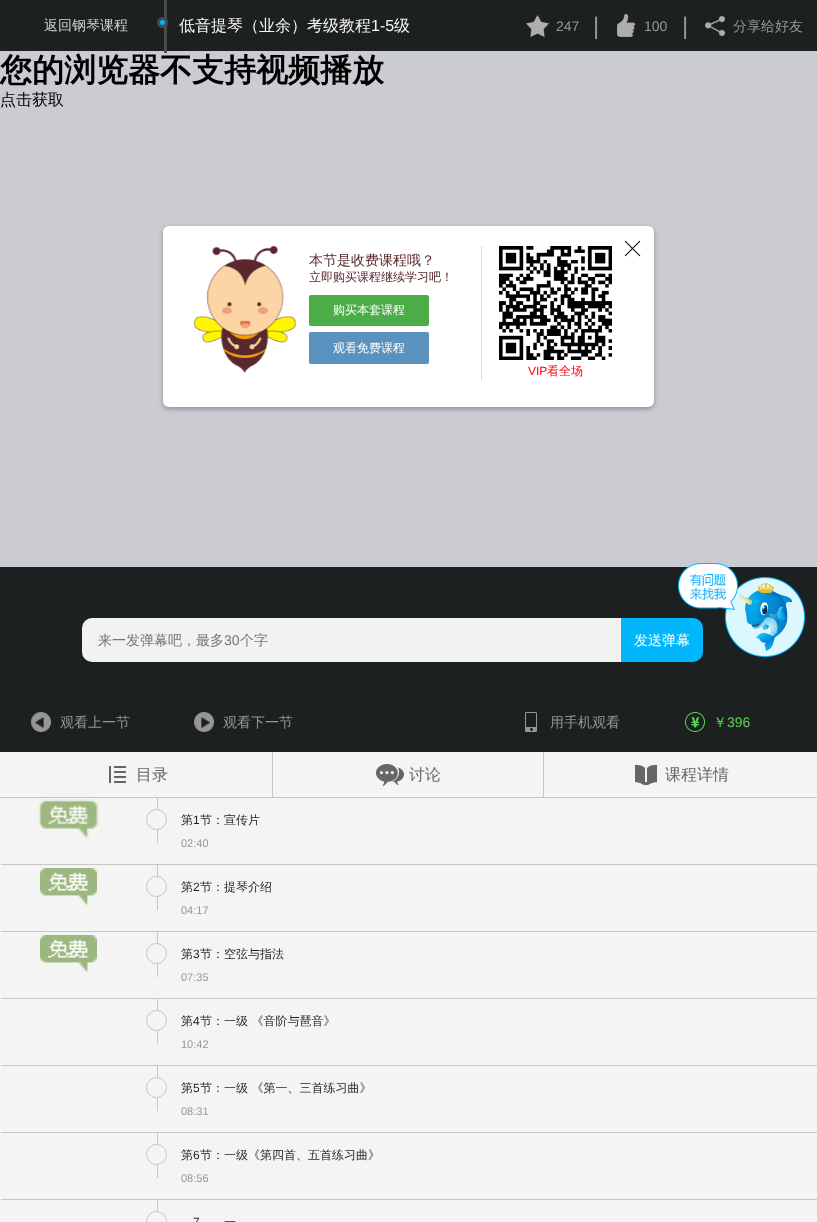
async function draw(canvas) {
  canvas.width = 817
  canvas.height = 1222
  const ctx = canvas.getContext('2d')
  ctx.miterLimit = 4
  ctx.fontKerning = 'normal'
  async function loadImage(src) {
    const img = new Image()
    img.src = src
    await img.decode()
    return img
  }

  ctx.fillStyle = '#cbccd1'
  ctx.fillRect(0, 0, 817, 1222)
  ctx.fillStyle = '#1c2021'
  ctx.fillRect(0, 0, 817, 51)
  ctx.font = '500 14px WenQuanYi Zen Hei'
  ctx.fillStyle = '#d2d2d2'
  ctx.fillText('返回钢琴课程', 44, 30)
  ctx.fillStyle = '#474b4c'
  ctx.fillRect(164, 0, 3, 53)
  ctx.fillStyle = '#00b7fd'
  ctx.beginPath()
  ctx.arc(162.5, 22.5, 4, 0, 2 * Math.PI)
  ctx.fill()
  ctx.strokeStyle = '#474b4c'
  ctx.lineWidth = 3
  ctx.stroke()
  ctx.font = '500 16px WenQuanYi Zen Hei'
  ctx.fillStyle = '#f6f4f5'
  ctx.fillText('低音提琴（业余）考级教程', 179, 31)
  ctx.font = '16px Liberation Sans'
  ctx.fillText('1-5', 371, 31)
  ctx.font = '500 16px WenQuanYi Zen Hei'
  ctx.fillText('级', 394, 31)
  ctx.drawImage(await loadImage('image0.png'), 526, 15, 23, 22)
  ctx.font = '14px Liberation Sans'
  ctx.fillStyle = '#979797'
  ctx.fillText('247', 556, 31)
  ctx.font = '24px Liberation Sans'
  ctx.fillText('|', 593, 34)
  ctx.drawImage(await loadImage('image1.png'), 617, 14, 18, 23)
  ctx.font = '14px Liberation Sans'
  ctx.fillText('100', 644, 31)
  ctx.font = '24px Liberation Sans'
  ctx.fillText('|', 682, 34)
  ctx.drawImage(await loadImage('image2.png'), 705, 16, 20, 20)
  ctx.font = '500 14px WenQuanYi Zen Hei'
  ctx.fillText('分享给好友', 733, 31)
  ctx.font = 'bold 32px WenQuanYi Zen Hei'
  ctx.fillStyle = '#000'
  ctx.fillText('您的浏览器不支持视频播放', 0, 81)
  ctx.font = '500 16px WenQuanYi Zen Hei'
  ctx.fillText('点击获取', 0, 105)
  ctx.fillStyle = '#0000004d'
  ctx.filter = 'blur(2.5px)'
  ctx.beginPath()
  ctx.roundRect(163, 228, 491, 181, 6)
  ctx.fill()
  ctx.filter = 'none'
  ctx.fillStyle = '#fff'
  ctx.beginPath()
  ctx.roundRect(163, 226, 491, 181, 6)
  ctx.fill()
  ctx.drawImage(await loadImage('image3.png'), 624, 240, 17, 17)
  ctx.drawImage(await loadImage('image4.png'), 193, 246, 103, 127)
  ctx.font = '500 14px WenQuanYi Zen Hei'
  ctx.fillStyle = '#58272a'
  ctx.fillText('本节是收费课程哦？', 309, 265)
  ctx.font = '500 12px WenQuanYi Zen Hei'
  ctx.fillText('立即购买课程继续学习吧！', 309, 281)
  ctx.fillStyle = '#4bad48'
  ctx.beginPath()
  ctx.roundRect(309, 295, 120, 31, 2)
  ctx.fill()
  ctx.fillStyle = '#fff'
  ctx.fillText('购买本套课程', 333, 314)
  ctx.fillStyle = '#5992bf'
  ctx.beginPath()
  ctx.roundRect(309, 332, 120, 32, 2)
  ctx.fill()
  ctx.fillStyle = '#fff'
  ctx.fillText('观看免费课程', 333, 352)
  ctx.fillStyle = '#d9d9d9'
  ctx.fillRect(481, 246, 1, 134)
  ctx.drawImage(await loadImage('image5.png'), 499, 246, 113, 114)
  ctx.font = '12px Liberation Sans'
  ctx.fillStyle = '#f00'
  ctx.fillText('VIP', 528, 375)
  ctx.font = '500 12px WenQuanYi Zen Hei'
  ctx.fillText('看全场', 547, 375)
  ctx.fillStyle = '#1c2021'
  ctx.fillRect(0, 567, 817, 185)
  ctx.fillStyle = '#f2f2f2'
  ctx.beginPath()
  ctx.roundRect(82, 618, 539, 44, [10, 0, 0, 10])
  ctx.fill()
  ctx.font = '500 14px WenQuanYi Zen Hei'
  ctx.fillStyle = '#757575'
  ctx.fillText('来一发弹幕吧，最多', 98, 645)
  ctx.font = '14px Liberation Sans'
  ctx.fillText('30', 224, 645)
  ctx.font = '500 14px WenQuanYi Zen Hei'
  ctx.fillText('个字', 240, 645)
  ctx.fillStyle = '#01b6fb'
  ctx.beginPath()
  ctx.roundRect(621, 618, 82, 44, [0, 10, 10, 0])
  ctx.fill()
  ctx.fillStyle = '#fff'
  ctx.fillText('发送弹幕', 634, 645)
  ctx.drawImage(await loadImage('image6.png'), 31, 712, 20, 20)
  ctx.fillStyle = '#979797'
  ctx.fillText('观看上一节', 60, 727)
  ctx.drawImage(await loadImage('image7.png'), 194, 712, 20, 20)
  ctx.fillText('观看下一节', 223, 727)
  ctx.drawImage(await loadImage('image8.png'), 525, 712, 12, 20)
  ctx.fillText('用手机观看', 550, 727)
  ctx.drawImage(await loadImage('image9.png'), 685, 712, 20, 20)
  ctx.fillStyle = '#59d455'
  ctx.fillText('￥', 713, 727)
  ctx.font = '14px Liberation Sans'
  ctx.fillText('396', 727, 727)
  ctx.fillStyle = '#f4f4f4'
  ctx.fillRect(0, 752, 817, 45)
  ctx.fillStyle = '#c6c6c6'
  ctx.fillRect(0, 797, 817, 1)
  ctx.drawImage(await loadImage('image10.png'), 109, 766, 17, 17)
  ctx.font = '500 16px WenQuanYi Zen Hei'
  ctx.fillStyle = '#666'
  ctx.fillText('目录', 136, 780)
  ctx.fillStyle = '#c6c6c6'
  ctx.fillRect(543, 752, 1, 45)
  ctx.fillRect(272, 752, 1, 45)
  ctx.drawImage(await loadImage('image11.png'), 376, 764, 28, 22)
  ctx.fillStyle = '#666'
  ctx.fillText('讨论', 409, 780)
  ctx.drawImage(await loadImage('image12.png'), 635, 764, 22, 21)
  ctx.fillText('课程详情', 665, 780)
  ctx.fillStyle = '#f4f4f4'
  ctx.fillRect(0, 798, 817, 424)
  ctx.drawImage(await loadImage('image13.png'), 38, 799, 61, 40)
  ctx.fillStyle = '#c6c6c6'
  ctx.beginPath()
  ctx.moveTo(817, 865)
  ctx.lineTo(0, 865)
  ctx.lineTo(2, 864)
  ctx.lineTo(817, 864)
  ctx.closePath()
  ctx.fill()
  ctx.fillRect(157, 798, 1, 45)
  ctx.fillStyle = '#f4f4f4'
  ctx.beginPath()
  ctx.arc(156.5, 819.5, 10, 0, 2 * Math.PI)
  ctx.fill()
  ctx.strokeStyle = '#c5c5c5'
  ctx.lineWidth = 1
  ctx.stroke()
  ctx.font = '500 12px WenQuanYi Zen Hei'
  ctx.fillStyle = '#1f2120'
  ctx.fillText('第', 181, 824)
  ctx.font = '12px Liberation Sans'
  ctx.fillText('1', 193, 824)
  ctx.font = '500 12px WenQuanYi Zen Hei'
  ctx.fillText('节：宣传片', 200, 824)
  ctx.font = '11px Liberation Sans'
  ctx.fillStyle = '#979797'
  ctx.fillText('02:40', 181, 847)
  ctx.drawImage(await loadImage('image14.png'), 40, 868, 57, 37)
  ctx.fillStyle = '#c6c6c6'
  ctx.beginPath()
  ctx.moveTo(817, 932)
  ctx.lineTo(0, 932)
  ctx.lineTo(2, 931)
  ctx.lineTo(817, 931)
  ctx.closePath()
  ctx.fill()
  ctx.fillRect(157, 865, 1, 45)
  ctx.fillStyle = '#f4f4f4'
  ctx.beginPath()
  ctx.arc(156.5, 886.5, 10, 0, 2 * Math.PI)
  ctx.fill()
  ctx.stroke()
  ctx.font = '500 12px WenQuanYi Zen Hei'
  ctx.fillStyle = '#1f2120'
  ctx.fillText('第', 181, 891)
  ctx.font = '12px Liberation Sans'
  ctx.fillText('2', 193, 891)
  ctx.font = '500 12px WenQuanYi Zen Hei'
  ctx.fillText('节：提琴介绍', 200, 891)
  ctx.font = '11px Liberation Sans'
  ctx.fillStyle = '#979797'
  ctx.fillText('04:17', 181, 914)
  ctx.drawImage(await loadImage('image14.png'), 40, 935, 57, 37)
  ctx.fillStyle = '#c6c6c6'
  ctx.beginPath()
  ctx.moveTo(817, 999)
  ctx.lineTo(0, 999)
  ctx.lineTo(2, 998)
  ctx.lineTo(817, 998)
  ctx.closePath()
  ctx.fill()
  ctx.fillRect(157, 932, 1, 45)
  ctx.fillStyle = '#f4f4f4'
  ctx.beginPath()
  ctx.arc(156.5, 953.5, 10, 0, 2 * Math.PI)
  ctx.fill()
  ctx.stroke()
  ctx.font = '500 12px WenQuanYi Zen Hei'
  ctx.fillStyle = '#1f2120'
  ctx.fillText('第', 181, 958)
  ctx.font = '12px Liberation Sans'
  ctx.fillText('3', 193, 958)
  ctx.font = '500 12px WenQuanYi Zen Hei'
  ctx.fillText('节：空弦与指法', 200, 958)
  ctx.font = '11px Liberation Sans'
  ctx.fillStyle = '#979797'
  ctx.fillText('07:35', 181, 981)
  ctx.fillStyle = '#c6c6c6'
  ctx.beginPath()
  ctx.moveTo(817, 1066)
  ctx.lineTo(0, 1066)
  ctx.lineTo(2, 1065)
  ctx.lineTo(817, 1065)
  ctx.closePath()
  ctx.fill()
  ctx.fillRect(157, 999, 1, 45)
  ctx.fillStyle = '#f4f4f4'
  ctx.beginPath()
  ctx.arc(156.5, 1020.5, 10, 0, 2 * Math.PI)
  ctx.fill()
  ctx.stroke()
  ctx.font = '500 12px WenQuanYi Zen Hei'
  ctx.fillStyle = '#1f2120'
  ctx.fillText('第', 181, 1025)
  ctx.font = '12px Liberation Sans'
  ctx.fillText('4', 193, 1025)
  ctx.font = '500 12px WenQuanYi Zen Hei'
  ctx.fillText('节：一级 《音阶与琶音》', 200, 1025)
  ctx.font = '11px Liberation Sans'
  ctx.fillStyle = '#979797'
  ctx.fillText('10:42', 181, 1048)
  ctx.fillStyle = '#c6c6c6'
  ctx.beginPath()
  ctx.moveTo(817, 1133)
  ctx.lineTo(0, 1133)
  ctx.lineTo(2, 1132)
  ctx.lineTo(817, 1132)
  ctx.closePath()
  ctx.fill()
  ctx.fillRect(157, 1066, 1, 45)
  ctx.fillStyle = '#f4f4f4'
  ctx.beginPath()
  ctx.arc(156.5, 1087.5, 10, 0, 2 * Math.PI)
  ctx.fill()
  ctx.stroke()
  ctx.font = '500 12px WenQuanYi Zen Hei'
  ctx.fillStyle = '#1f2120'
  ctx.fillText('第', 181, 1092)
  ctx.font = '12px Liberation Sans'
  ctx.fillText('5', 193, 1092)
  ctx.font = '500 12px WenQuanYi Zen Hei'
  ctx.fillText('节：一级 《第一、三首练习曲》', 200, 1092)
  ctx.font = '11px Liberation Sans'
  ctx.fillStyle = '#979797'
  ctx.fillText('08:31', 181, 1115)
  ctx.fillStyle = '#c6c6c6'
  ctx.beginPath()
  ctx.moveTo(817, 1200)
  ctx.lineTo(0, 1200)
  ctx.lineTo(2, 1199)
  ctx.lineTo(817, 1199)
  ctx.closePath()
  ctx.fill()
  ctx.fillRect(157, 1133, 1, 45)
  ctx.fillStyle = '#f4f4f4'
  ctx.beginPath()
  ctx.arc(156.5, 1154.5, 10, 0, 2 * Math.PI)
  ctx.fill()
  ctx.stroke()
  ctx.font = '500 12px WenQuanYi Zen Hei'
  ctx.fillStyle = '#1f2120'
  ctx.fillText('第', 181, 1159)
  ctx.font = '12px Liberation Sans'
  ctx.fillText('6', 193, 1159)
  ctx.font = '500 12px WenQuanYi Zen Hei'
  ctx.fillText('节：一级《第四首、五首练习曲》', 200, 1159)
  ctx.font = '11px Liberation Sans'
  ctx.fillStyle = '#979797'
  ctx.fillText('08:56', 181, 1182)
  ctx.fillStyle = '#c6c6c6'
  ctx.fillRect(157, 1200, 1, 12)
  ctx.fillStyle = '#f4f4f4'
  ctx.beginPath()
  ctx.arc(156.5, 1221.5, 10, 0, 2 * Math.PI)
  ctx.fill()
  ctx.stroke()
  ctx.font = '12px Liberation Sans'
  ctx.fillStyle = '#1f2120'
  ctx.fillText('7', 193, 1226)
  ctx.font = '500 12px WenQuanYi Zen Hei'
  ctx.fillText('一', 224, 1226)
  ctx.drawImage(await loadImage('image15.png'), 678, 563, 127, 94)
}

draw(document.querySelector('canvas'))
